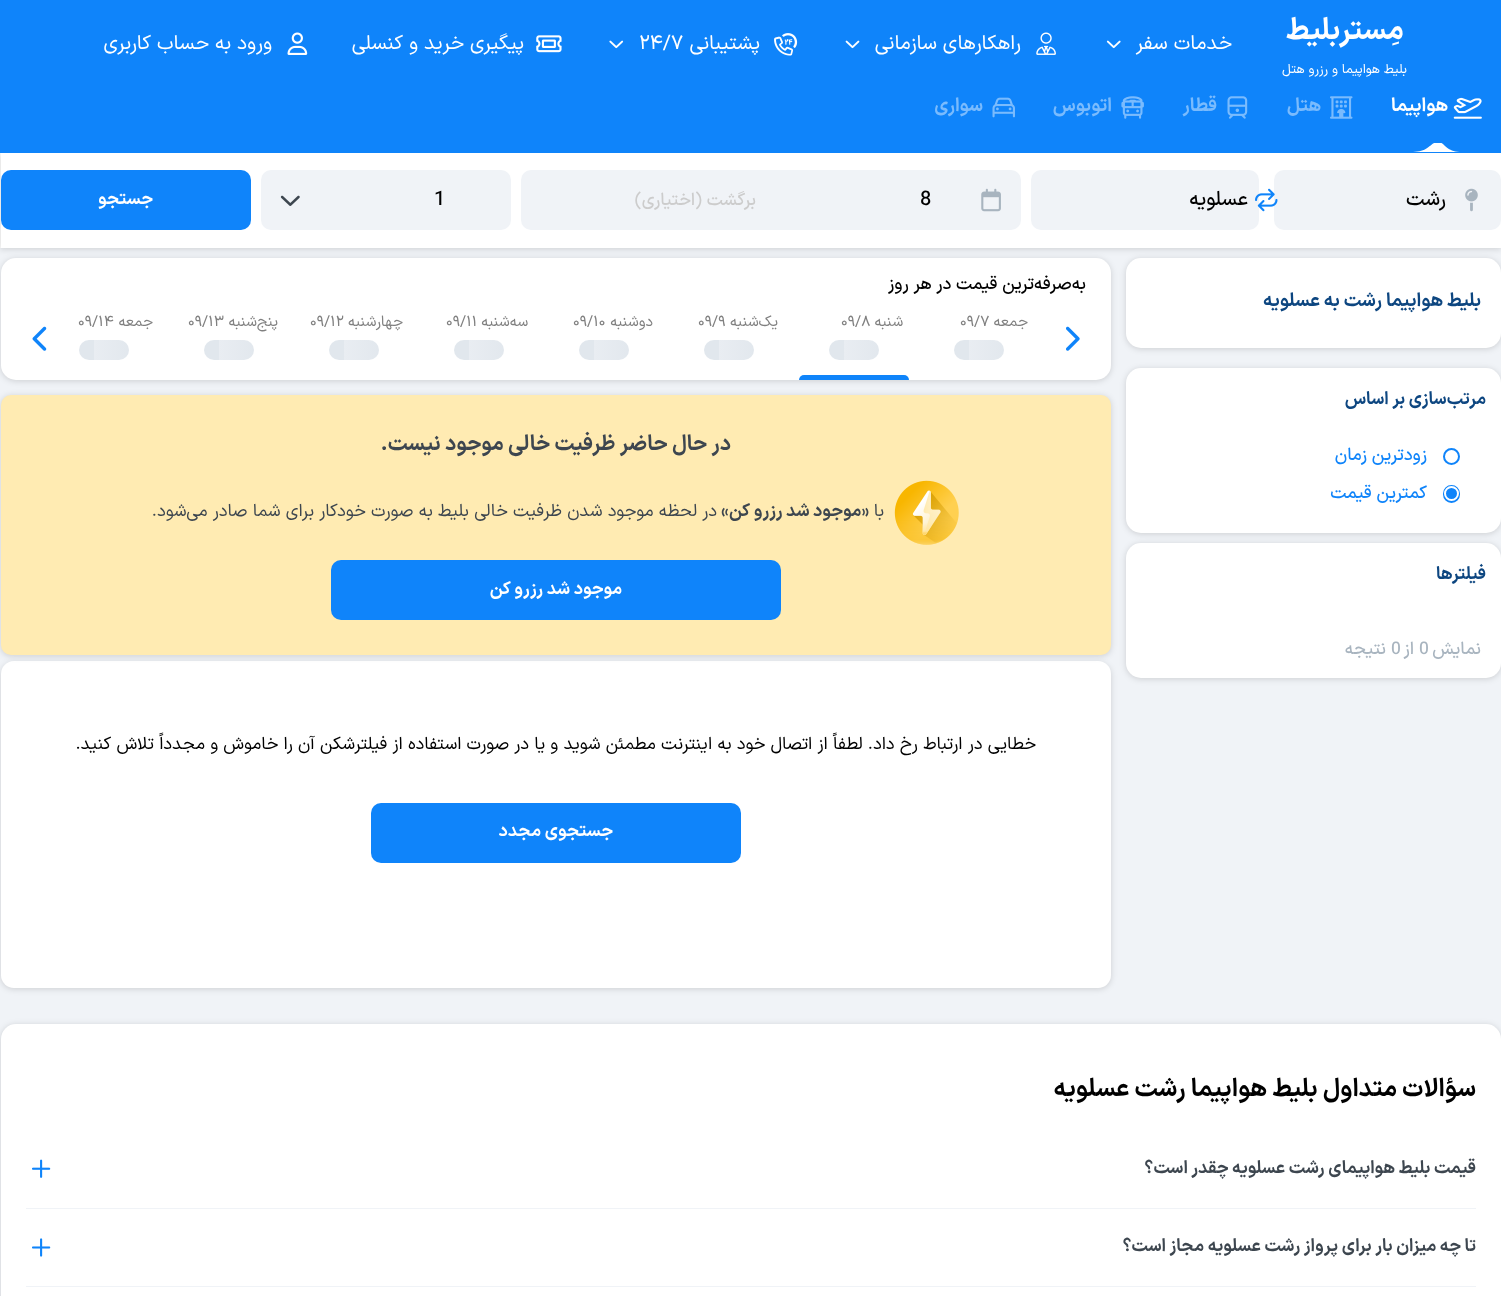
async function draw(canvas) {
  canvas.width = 1501
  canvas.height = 1296
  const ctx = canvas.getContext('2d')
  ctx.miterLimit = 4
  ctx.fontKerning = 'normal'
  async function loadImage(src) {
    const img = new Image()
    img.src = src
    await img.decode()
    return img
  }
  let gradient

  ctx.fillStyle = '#f0f3f7'
  ctx.fillRect(0, 0, 1501, 1296)
  ctx.fillStyle = '#0f84fa'
  ctx.fillRect(0, 0, 1501, 88)
  ctx.direction = 'rtl'
  ctx.font = 'bold 30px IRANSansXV'
  ctx.fillStyle = '#fff'
  ctx.fillText('مِستربلیط', 1404, 39)
  ctx.font = '13.1px IRANSansXV'
  ctx.fillText('بلیط هواپیما و رزرو هتل', 1407, 73)
  ctx.font = '20px IRANSansXV'
  ctx.fillText('خدمات سفر', 1232, 49)
  ctx.drawImage(await loadImage('image0.png'), 1106, 40, 15, 9)
  ctx.drawImage(await loadImage('image1.png'), 1036, 32, 20, 23)
  ctx.fillText('راهکارهای سازمانی', 1021, 49)
  ctx.drawImage(await loadImage('image2.png'), 845, 40, 15, 9)
  ctx.drawImage(await loadImage('image3.png'), 774, 33, 24, 23)
  ctx.fillText('پشتیبانی', 760, 49)
  ctx.direction = 'ltr'
  ctx.fillText('۲۴/۷', 639, 49)
  ctx.drawImage(await loadImage('image4.png'), 609, 40, 15, 9)
  ctx.drawImage(await loadImage('image5.png'), 536, 35, 26, 18)
  ctx.direction = 'rtl'
  ctx.fillText('پیگیری خرید و کنسلی', 524, 49)
  ctx.drawImage(await loadImage('image6.png'), 287, 32, 21, 23)
  ctx.fillText('ورود به حساب کاربری', 272, 49)
  ctx.fillRect(0, 153, 1, 95)
  ctx.fillStyle = '#00000026'
  ctx.filter = 'blur(3px)'
  ctx.beginPath()
  ctx.roundRect(1126, 259, 375, 90, 15)
  ctx.fill()
  ctx.filter = 'none'
  ctx.fillStyle = '#fff'
  ctx.beginPath()
  ctx.roundRect(1126, 258, 375, 90, 15)
  ctx.fill()
  ctx.fillStyle = '#00000026'
  ctx.filter = 'blur(3px)'
  ctx.beginPath()
  ctx.roundRect(1, 259, 1110, 122, 15)
  ctx.fill()
  ctx.filter = 'none'
  ctx.fillStyle = '#fff'
  ctx.beginPath()
  ctx.roundRect(1, 258, 1110, 122, 15)
  ctx.fill()
  ctx.fillStyle = '#00000026'
  ctx.filter = 'blur(3px)'
  ctx.beginPath()
  ctx.rect(0, 154, 1501, 95)
  ctx.fill()
  ctx.filter = 'none'
  ctx.fillStyle = '#0f84fa'
  ctx.fillRect(0, 88, 1501, 65)
  ctx.drawImage(await loadImage('image7.png'), 1453, 97, 29, 22)
  ctx.font = 'bold 18.75px IRANSansXV'
  ctx.fillStyle = '#fff'
  ctx.fillText('هواپیما', 1448, 111)
  ctx.save()
  ctx.beginPath()
  ctx.rect(1413, 143, 50, 10)
  ctx.clip()
  ctx.beginPath()
  ctx.moveTo(1438, 142)
  ctx.bezierCurveTo(1430, 142, 1430, 152, 1412, 152)
  ctx.lineTo(1462, 152)
  ctx.bezierCurveTo(1445, 152, 1445, 142, 1438, 142)
  ctx.closePath()
  ctx.fill()
  ctx.restore()
  ctx.drawImage(await loadImage('image8.png'), 1330, 96, 23, 23)
  ctx.fillStyle = '#7abbfd'
  ctx.fillText('هتل', 1321, 111)
  ctx.drawImage(await loadImage('image9.png'), 1227, 96, 21, 23)
  ctx.fillText('قطار', 1217, 111)
  ctx.drawImage(await loadImage('image10.png'), 1121, 96, 23, 23)
  ctx.fillText('اتوبوس', 1112, 111)
  ctx.drawImage(await loadImage('image11.png'), 992, 97, 23, 21)
  ctx.fillText('سواری', 983, 111)
  ctx.fillStyle = '#fff'
  ctx.fillRect(1, 153, 1500, 95)
  ctx.fillStyle = '#f0f3f7'
  ctx.beginPath()
  ctx.roundRect(1274, 170, 227, 60, 10)
  ctx.fill()
  ctx.drawImage(await loadImage('image12.png'), 1465, 188, 13, 24)
  ctx.font = '500 20px IRANSansXV'
  ctx.fillStyle = '#000'
  ctx.fillText('رشت', 1446, 205)
  ctx.fillStyle = '#f0f3f7'
  ctx.beginPath()
  ctx.roundRect(1031, 170, 228, 60, 10)
  ctx.fill()
  ctx.drawImage(await loadImage('image13.png'), 1255, 188, 23, 24)
  ctx.fillStyle = '#000'
  ctx.fillText('عسلویه', 1248, 205)
  ctx.fillStyle = '#f0f3f7'
  ctx.beginPath()
  ctx.roundRect(771, 170, 250, 60, [0, 10, 10, 0])
  ctx.fill()
  ctx.drawImage(await loadImage('image14.png'), 981, 188, 20, 24)
  ctx.direction = 'ltr'
  ctx.fillStyle = '#000'
  ctx.fillText('8', 920, 205)
  ctx.fillStyle = '#f0f3f7'
  ctx.beginPath()
  ctx.roundRect(521, 170, 250, 60, [10, 0, 0, 10])
  ctx.fill()
  ctx.direction = 'rtl'
  ctx.font = '500 17.5px IRANSansXV'
  ctx.fillStyle = '#ccc'
  ctx.fillText('برگشت (اختیاری)', 756, 205)
  ctx.fillStyle = '#f0f3f7'
  ctx.beginPath()
  ctx.roundRect(261, 170, 250, 60, 10)
  ctx.fill()
  ctx.direction = 'ltr'
  ctx.font = '500 20px IRANSansXV'
  ctx.fillStyle = '#000'
  ctx.fillText('1', 434, 205)
  ctx.drawImage(await loadImage('image15.png'), 280, 195, 20, 11)
  ctx.fillStyle = '#0f84fa'
  ctx.beginPath()
  ctx.roundRect(1, 170, 250, 60, 10)
  ctx.fill()
  ctx.direction = 'rtl'
  ctx.font = 'bold 17.5px IRANSansXV'
  ctx.fillStyle = '#fff'
  ctx.fillText('جستجو', 153, 204)
  ctx.font = 'bold 18.75px IRANSansXV'
  ctx.fillStyle = '#0d4680'
  ctx.fillText('بلیط', 1481, 306)
  ctx.fillText('هواپیما رشت به عسلویه', 1443, 306)
  ctx.fillStyle = '#00000026'
  ctx.filter = 'blur(3px)'
  ctx.beginPath()
  ctx.roundRect(1126, 369, 375, 165, 15)
  ctx.fill()
  ctx.filter = 'none'
  ctx.fillStyle = '#fff'
  ctx.beginPath()
  ctx.roundRect(1126, 368, 375, 165, 15)
  ctx.fill()
  ctx.font = 'bold 17.5px IRANSansXV'
  ctx.fillStyle = '#0d4680'
  ctx.fillText('مرتب‌سازی بر اساس', 1486, 404)
  ctx.beginPath()
  ctx.arc(1451.5, 456.5, 7.5, 0, 2 * Math.PI)
  ctx.strokeStyle = '#0f84fa'
  ctx.lineWidth = 2
  ctx.stroke()
  ctx.font = '500 17.5px IRANSansXV'
  ctx.fillStyle = '#0f84fa'
  ctx.fillText('زود‌ترین زمان', 1427, 460)
  ctx.beginPath()
  ctx.roundRect(1444, 486, 15, 16, 7.5)
  ctx.fill()
  ctx.stroke()
  ctx.beginPath()
  ctx.arc(1451.5, 493.5, 6.5, 0, 2 * Math.PI)
  ctx.strokeStyle = '#fff'
  ctx.stroke()
  ctx.fillText('کمترین قیمت', 1427, 498)
  ctx.fillStyle = '#00000026'
  ctx.filter = 'blur(3px)'
  ctx.beginPath()
  ctx.roundRect(1126, 544, 375, 135, 15)
  ctx.fill()
  ctx.filter = 'none'
  ctx.fillStyle = '#fff'
  ctx.beginPath()
  ctx.roundRect(1126, 543, 375, 135, 15)
  ctx.fill()
  ctx.font = 'bold 17.5px IRANSansXV'
  ctx.fillStyle = '#0d4680'
  ctx.fillText('فیلترها', 1486, 579)
  ctx.font = '500 17.5px IRANSansXV'
  ctx.fillStyle = '#a8b4bf'
  ctx.fillText('نمایش', 1481, 654)
  ctx.direction = 'ltr'
  ctx.fillText('0', 1419, 654)
  ctx.direction = 'rtl'
  ctx.fillText('از', 1414, 654)
  ctx.direction = 'ltr'
  ctx.fillText('0', 1391, 654)
  ctx.direction = 'rtl'
  ctx.fillText('نتیجه', 1386, 654)
  ctx.fillStyle = '#000'
  ctx.fillText('به‌صرفه‌ترین قیمت در هر روز', 1086, 289)
  ctx.font = '15px IRANSansXV'
  ctx.fillStyle = '#808080'
  ctx.fillText('جمعه', 1028, 326)
  ctx.direction = 'ltr'
  ctx.font = '15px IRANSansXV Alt'
  ctx.fillText('09/7', 960, 326)
  gradient = ctx.createLinearGradient(954, 350, 1054, 350)
  gradient.addColorStop(0.15, '#e1e7ed')
  gradient.addColorStop(0.15, '#e9edf2')
  gradient.addColorStop(0.55, '#e1e7ed')
  ctx.fillStyle = gradient
  ctx.beginPath()
  ctx.roundRect(954, 340, 50, 20, 10)
  ctx.fill()
  ctx.direction = 'rtl'
  ctx.font = '15px IRANSansXV'
  ctx.fillStyle = '#808080'
  ctx.fillText('شنبه', 903, 326)
  ctx.direction = 'ltr'
  ctx.font = '15px IRANSansXV Alt'
  ctx.fillText('09/8', 841, 326)
  gradient = ctx.createLinearGradient(829, 350, 929, 350)
  gradient.addColorStop(0.15, '#e1e7ed')
  gradient.addColorStop(0.15, '#e9edf2')
  gradient.addColorStop(0.55, '#e1e7ed')
  ctx.fillStyle = gradient
  ctx.beginPath()
  ctx.roundRect(829, 340, 50, 20, 10)
  ctx.fill()
  ctx.fillStyle = '#0f84fa'
  ctx.beginPath()
  ctx.roundRect(799, 375, 110, 5, [5, 5, 0, 0])
  ctx.fill()
  ctx.direction = 'rtl'
  ctx.font = '15px IRANSansXV'
  ctx.fillStyle = '#808080'
  ctx.fillText('یک‌شنبه', 778, 326)
  ctx.direction = 'ltr'
  ctx.font = '15px IRANSansXV Alt'
  ctx.fillText('09/9', 698, 326)
  gradient = ctx.createLinearGradient(704, 350, 804, 350)
  gradient.addColorStop(0.15, '#e1e7ed')
  gradient.addColorStop(0.15, '#e9edf2')
  gradient.addColorStop(0.55, '#e1e7ed')
  ctx.fillStyle = gradient
  ctx.beginPath()
  ctx.roundRect(704, 340, 50, 20, 10)
  ctx.fill()
  ctx.direction = 'rtl'
  ctx.font = '15px IRANSansXV'
  ctx.fillStyle = '#808080'
  ctx.fillText('دوشنبه', 653, 326)
  ctx.direction = 'ltr'
  ctx.font = '15px IRANSansXV Alt'
  ctx.fillText('09/10', 573, 326)
  gradient = ctx.createLinearGradient(579, 350, 679, 350)
  gradient.addColorStop(0.15, '#e1e7ed')
  gradient.addColorStop(0.15, '#e9edf2')
  gradient.addColorStop(0.55, '#e1e7ed')
  ctx.fillStyle = gradient
  ctx.beginPath()
  ctx.roundRect(579, 340, 50, 20, 10)
  ctx.fill()
  ctx.direction = 'rtl'
  ctx.font = '15px IRANSansXV'
  ctx.fillStyle = '#808080'
  ctx.fillText('سه‌شنبه', 528, 326)
  ctx.direction = 'ltr'
  ctx.font = '15px IRANSansXV Alt'
  ctx.fillText('09/11', 446, 326)
  gradient = ctx.createLinearGradient(454, 350, 554, 350)
  gradient.addColorStop(0.15, '#e1e7ed')
  gradient.addColorStop(0.15, '#e9edf2')
  gradient.addColorStop(0.55, '#e1e7ed')
  ctx.fillStyle = gradient
  ctx.beginPath()
  ctx.roundRect(454, 340, 50, 20, 10)
  ctx.fill()
  ctx.direction = 'rtl'
  ctx.font = '15px IRANSansXV'
  ctx.fillStyle = '#808080'
  ctx.fillText('چهارشنبه', 403, 326)
  ctx.direction = 'ltr'
  ctx.font = '15px IRANSansXV Alt'
  ctx.fillText('09/12', 310, 326)
  gradient = ctx.createLinearGradient(329, 350, 429, 350)
  gradient.addColorStop(0.15, '#e1e7ed')
  gradient.addColorStop(0.15, '#e9edf2')
  gradient.addColorStop(0.55, '#e1e7ed')
  ctx.fillStyle = gradient
  ctx.beginPath()
  ctx.roundRect(329, 340, 50, 20, 10)
  ctx.fill()
  ctx.direction = 'rtl'
  ctx.font = '15px IRANSansXV'
  ctx.fillStyle = '#808080'
  ctx.fillText('پنج‌شنبه', 278, 326)
  ctx.direction = 'ltr'
  ctx.font = '15px IRANSansXV Alt'
  ctx.fillText('09/13', 188, 326)
  gradient = ctx.createLinearGradient(204, 350, 304, 350)
  gradient.addColorStop(0.15, '#e1e7ed')
  gradient.addColorStop(0.15, '#e9edf2')
  gradient.addColorStop(0.55, '#e1e7ed')
  ctx.fillStyle = gradient
  ctx.beginPath()
  ctx.roundRect(204, 340, 50, 20, 10)
  ctx.fill()
  ctx.direction = 'rtl'
  ctx.font = '15px IRANSansXV'
  ctx.fillStyle = '#808080'
  ctx.fillText('جمعه', 153, 326)
  ctx.direction = 'ltr'
  ctx.font = '15px IRANSansXV Alt'
  ctx.fillText('09/14', 78, 326)
  gradient = ctx.createLinearGradient(79, 350, 179, 350)
  gradient.addColorStop(0.15, '#e1e7ed')
  gradient.addColorStop(0.15, '#e9edf2')
  gradient.addColorStop(0.55, '#e1e7ed')
  ctx.fillStyle = gradient
  ctx.beginPath()
  ctx.roundRect(79, 340, 50, 20, 10)
  ctx.fill()
  ctx.drawImage(await loadImage('image16.png'), 1066, 326, 14, 25)
  ctx.drawImage(await loadImage('image17.png'), 32, 326, 15, 25)
  ctx.fillStyle = '#00000026'
  ctx.filter = 'blur(3px)'
  ctx.beginPath()
  ctx.roundRect(1, 663, 1110, 326, 13)
  ctx.fill()
  ctx.filter = 'none'
  ctx.fillStyle = '#fff'
  ctx.beginPath()
  ctx.roundRect(1, 661, 1110, 327, 13)
  ctx.fill()
  ctx.fillStyle = '#00000026'
  ctx.filter = 'blur(3px)'
  ctx.beginPath()
  ctx.roundRect(1, 396, 1110, 260, 10)
  ctx.fill()
  ctx.filter = 'none'
  ctx.fillStyle = '#ffebb2'
  ctx.beginPath()
  ctx.roundRect(1, 395, 1110, 260, 10)
  ctx.fill()
  ctx.direction = 'rtl'
  ctx.font = 'bold 21.25px IRANSansXV'
  ctx.fillStyle = '#3d464f'
  ctx.fillText('در حال حاضر ظرفیت خالی موجود نیست.', 731, 450)
  ctx.drawImage(await loadImage('image18.png'), 894, 480, 65, 65)
  ctx.font = '17.5px IRANSansXV'
  ctx.fillText('با', 884, 516)
  ctx.font = 'bold 17.5px IRANSansXV'
  ctx.fillText('«موجود شد رزرو کن»', 869, 516)
  ctx.font = '17.5px IRANSansXV'
  ctx.fillText('در لحظه موجود شدن ظرفیت خالی بلیط به صورت خودکار برای شما صادر می‌شود.', 717, 516)
  ctx.fillStyle = '#0f84fa'
  ctx.beginPath()
  ctx.roundRect(331, 560, 450, 60, 10)
  ctx.fill()
  ctx.font = 'bold 17.5px IRANSansXV'
  ctx.fillStyle = '#fff'
  ctx.fillText('موجود شد رزرو کن', 622, 594)
  ctx.font = '17.5px IRANSansXV'
  ctx.fillStyle = '#000'
  ctx.fillText('خطایی در ارتباط رخ داد. لطفاً از اتصال خود به اینترنت مطمئن شوید و یا در صورت استفاده از فیلترشکن آن را خاموش و مجدداً تلاش کنید.', 1036, 749)
  ctx.fillStyle = '#0f84fa'
  ctx.beginPath()
  ctx.roundRect(371, 803, 370, 60, 10)
  ctx.fill()
  ctx.font = 'bold 17.5px IRANSansXV'
  ctx.fillStyle = '#fff'
  ctx.fillText('جستجوی مجدد', 613, 836)
  ctx.fillStyle = '#00000026'
  ctx.filter = 'blur(3px)'
  ctx.beginPath()
  ctx.roundRect(1, 1025, 1500, 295, 15)
  ctx.fill()
  ctx.filter = 'none'
  ctx.fillStyle = '#fff'
  ctx.beginPath()
  ctx.roundRect(1, 1024, 1500, 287, 15)
  ctx.fill()
  ctx.font = 'bold 25px IRANSansXV'
  ctx.fillStyle = '#000'
  ctx.fillText('سؤالات متداول بلیط هواپیما رشت عسلویه', 1476, 1096)
  ctx.font = 'bold 17.5px IRANSansXV'
  ctx.fillStyle = '#3d464f'
  ctx.fillText('قیمت بلیط هواپیمای رشت عسلویه چقدر است؟', 1476, 1173)
  ctx.drawImage(await loadImage('image19.png'), 32, 1159, 19, 19)
  ctx.fillStyle = '#f0f3f7'
  ctx.fillRect(26, 1208, 1450, 1)
  ctx.fillStyle = '#3d464f'
  ctx.fillText('تا چه میزان بار برای پرواز رشت عسلویه مجاز است؟', 1476, 1251)
  ctx.drawImage(await loadImage('image20.png'), 32, 1238, 19, 19)
  ctx.fillStyle = '#f0f3f7'
  ctx.fillRect(26, 1286, 1450, 1)
}

draw(document.querySelector('canvas'))
